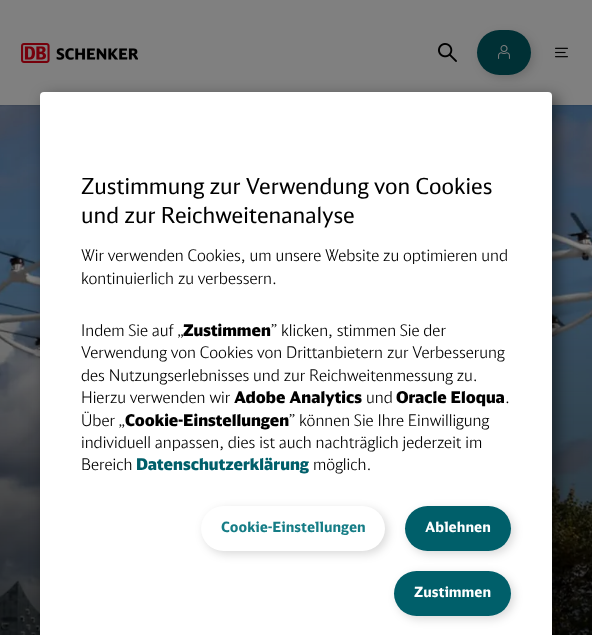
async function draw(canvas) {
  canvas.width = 592
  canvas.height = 635
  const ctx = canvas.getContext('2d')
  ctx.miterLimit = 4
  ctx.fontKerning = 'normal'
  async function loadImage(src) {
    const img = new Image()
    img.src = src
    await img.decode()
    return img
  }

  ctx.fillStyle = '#808080'
  ctx.fillRect(0, 0, 592, 635)
  ctx.drawImage(await loadImage('image0.png'), 21, 43, 117, 20)
  ctx.drawImage(await loadImage('image1.png'), 438, 43, 19, 19)
  ctx.fillStyle = '#00000026'
  ctx.filter = 'blur(5px)'
  ctx.beginPath()
  ctx.roundRect(480, 33, 54, 45, 22.5)
  ctx.fill()
  ctx.filter = 'none'
  ctx.fillStyle = '#003035'
  ctx.beginPath()
  ctx.roundRect(477, 30, 54, 45, 22.5)
  ctx.fill()
  ctx.drawImage(await loadImage('image2.png'), 498, 45, 12, 14)
  ctx.drawImage(await loadImage('image3.png'), 555, 47, 13, 11)
  ctx.drawImage(await loadImage('image4.png'), 0, 105, 592, 530)
  ctx.fillStyle = '#00000080'
  ctx.filter = 'blur(7.5px)'
  ctx.beginPath()
  ctx.roundRect(45, 97, 512, 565, 4)
  ctx.fill()
  ctx.filter = 'none'
  ctx.fillStyle = '#fff'
  ctx.beginPath()
  ctx.roundRect(40, 92, 512, 543, [4, 4, 0, 0])
  ctx.fill()
  ctx.font = '22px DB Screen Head'
  ctx.fillStyle = '#000'
  ctx.fillText('Zustimmung zur Verwendung von Cookies', 81, 194)
  ctx.fillText('und zur Reichweitenanalyse', 81, 223)
  ctx.font = '300 16px DB Screen Head'
  ctx.fillText('Wir verwenden Cookies, um unsere Website zu optimieren und', 81, 261)
  ctx.fillText('kontinuierlich zu verbessern.', 81, 284)
  ctx.fillText('Indem Sie auf „', 81, 336)
  ctx.font = '900 16px DB Screen Head'
  ctx.fillText('Zustimmen', 183, 336)
  ctx.font = '300 16px DB Screen Head'
  ctx.fillText('” klicken, stimmen Sie der', 271, 336)
  ctx.fillText('Verwendung von Cookies von Drittanbietern zur Verbesserung', 81, 358)
  ctx.fillText('des Nutzungserlebnisses und zur Reichweitenmessung zu.', 81, 381)
  ctx.fillText('Hierzu verwenden wir', 81, 403)
  ctx.font = '900 16px DB Screen Head'
  ctx.fillText('Adobe Analytics', 234, 403)
  ctx.font = '300 16px DB Screen Head'
  ctx.fillText('und', 366, 403)
  ctx.font = '900 16px DB Screen Head'
  ctx.fillText('Oracle Eloqua', 396, 403)
  ctx.font = '300 16px DB Screen Head'
  ctx.fillText('.', 505, 403)
  ctx.fillText('Über „', 81, 426)
  ctx.font = '900 16px DB Screen Head'
  ctx.fillText('Cookie-Einstellungen', 125, 426)
  ctx.font = '300 16px DB Screen Head'
  ctx.fillText('” können Sie Ihre Einwilligung', 289, 426)
  ctx.fillText('individuell anpassen, dies ist auch nachträglich jederzeit im', 81, 448)
  ctx.fillText('Bereich', 81, 470)
  ctx.font = '900 16px DB Screen Head'
  ctx.fillStyle = '#005f6a'
  ctx.fillText('Datenschutzerklärung', 136, 470)
  ctx.font = '300 16px DB Screen Head'
  ctx.fillStyle = '#000'
  ctx.fillText('möglich.', 313, 470)
  ctx.fillStyle = '#00000026'
  ctx.filter = 'blur(5px)'
  ctx.beginPath()
  ctx.roundRect(204, 509, 184, 45, 22.5)
  ctx.fill()
  ctx.filter = 'none'
  ctx.fillStyle = '#fff'
  ctx.beginPath()
  ctx.roundRect(201, 506, 184, 45, 22.5)
  ctx.fill()
  ctx.font = 'bold 14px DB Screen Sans'
  ctx.fillStyle = '#167d86'
  ctx.fillText('Cookie-Einstellungen', 221, 532)
  ctx.fillStyle = '#00000026'
  ctx.filter = 'blur(5px)'
  ctx.beginPath()
  ctx.roundRect(408, 509, 106, 45, 22.5)
  ctx.fill()
  ctx.filter = 'none'
  ctx.fillStyle = '#005f6a'
  ctx.beginPath()
  ctx.roundRect(405, 506, 106, 45, 22.5)
  ctx.fill()
  ctx.fillStyle = '#fff'
  ctx.fillText('Ablehnen', 425, 532)
  ctx.fillStyle = '#00000026'
  ctx.filter = 'blur(5px)'
  ctx.beginPath()
  ctx.roundRect(397, 574, 117, 45, 22.5)
  ctx.fill()
  ctx.filter = 'none'
  ctx.fillStyle = '#005f6a'
  ctx.beginPath()
  ctx.roundRect(394, 571, 117, 45, 22.5)
  ctx.fill()
  ctx.fillStyle = '#fff'
  ctx.fillText('Zustimmen', 414, 597)
}

draw(document.querySelector('canvas'))
